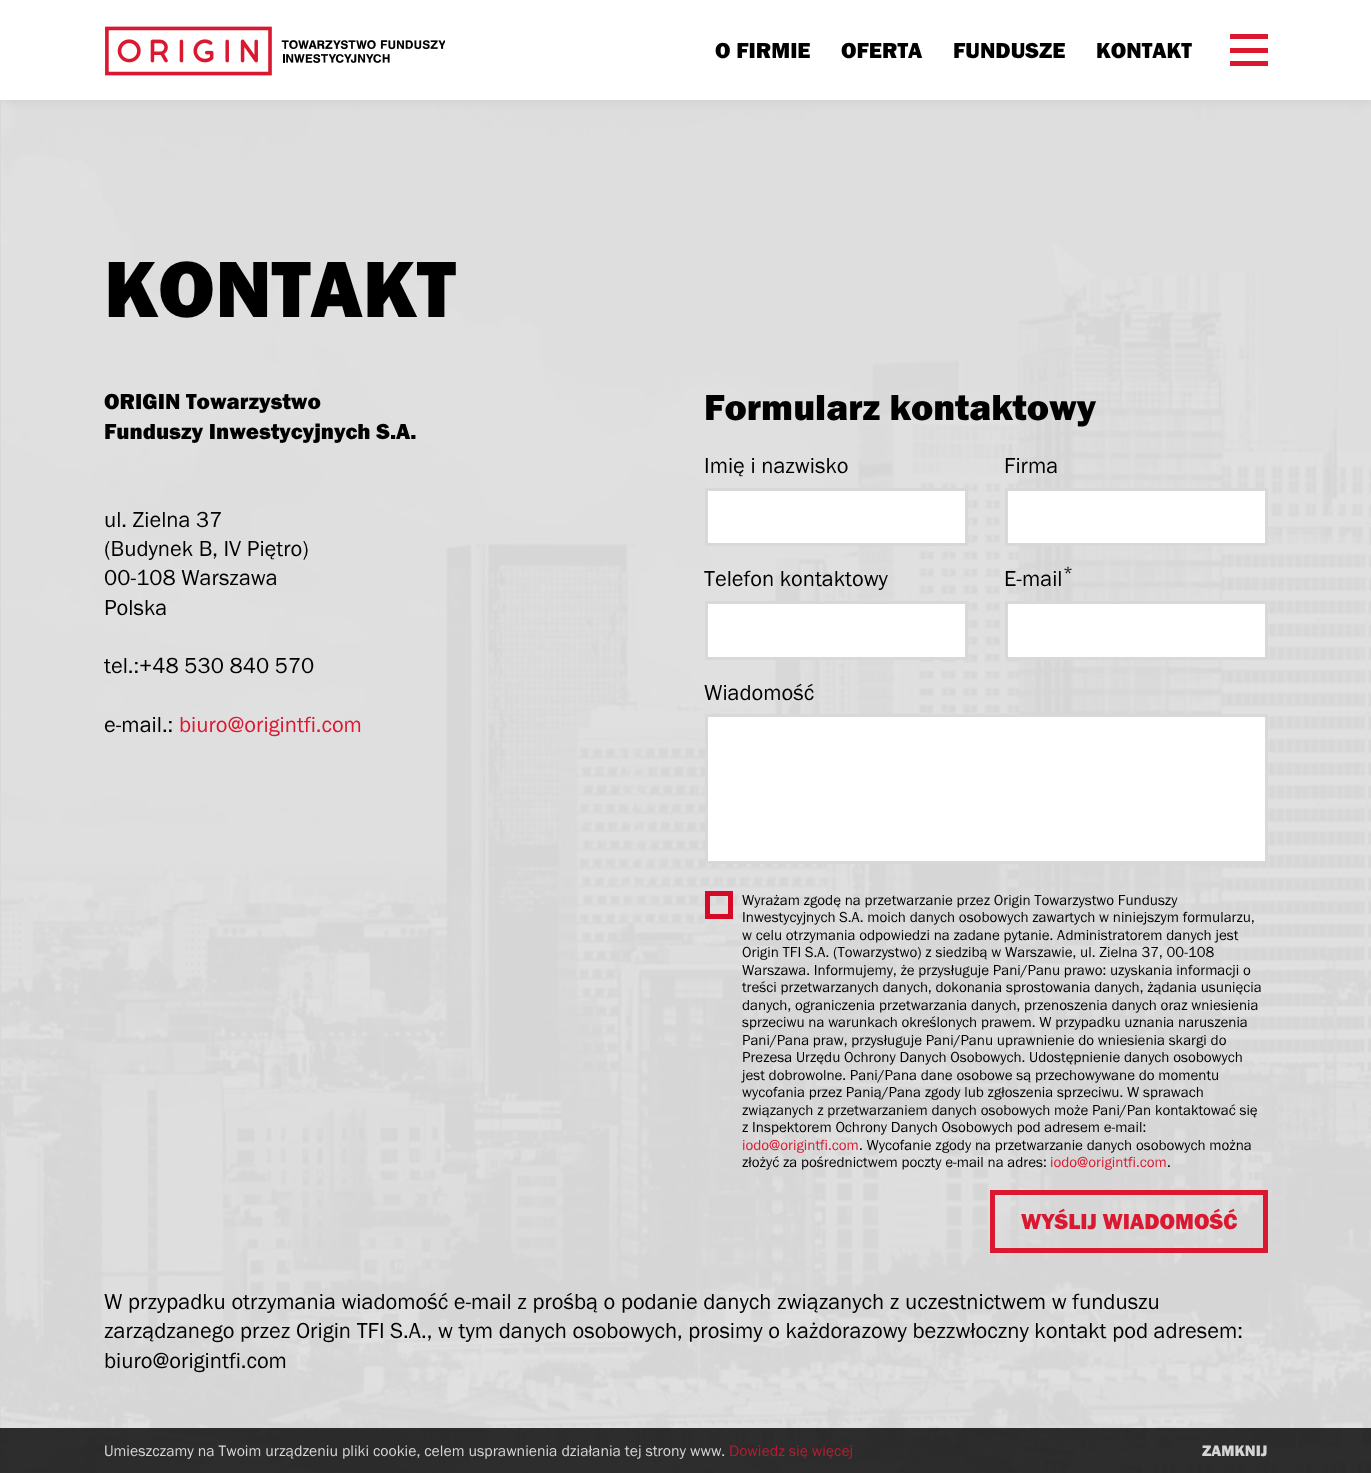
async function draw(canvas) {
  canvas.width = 1371
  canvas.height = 1473
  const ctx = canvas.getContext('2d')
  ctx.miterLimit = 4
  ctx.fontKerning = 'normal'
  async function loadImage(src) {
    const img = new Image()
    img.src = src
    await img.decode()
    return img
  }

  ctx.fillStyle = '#d6d6d6'
  ctx.fillRect(0, 0, 1371, 1473)
  ctx.drawImage(await loadImage('image1.png'), 0, 100, 1371, 1373)
  ctx.fillStyle = '#00000014'
  ctx.filter = 'blur(6px)'
  ctx.beginPath()
  ctx.rect(0, 0, 1371, 100)
  ctx.fill()
  ctx.filter = 'none'
  ctx.fillStyle = '#fff'
  ctx.fillRect(0, 0, 1371, 100)
  ctx.drawImage(await loadImage('image0.png'), 105, 26, 340, 50)
  ctx.font = '900 22.5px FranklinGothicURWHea'
  ctx.fillStyle = '#000'
  ctx.fillText('O FIRMIE', 715, 58)
  ctx.fillText('OFERTA', 841, 58)
  ctx.fillText('FUNDUSZE', 953, 58)
  ctx.fillText('KONTAKT', 1096, 58)
  ctx.fillStyle = '#da1931'
  ctx.fillRect(1230, 48, 38, 5)
  ctx.fillRect(1230, 34, 38, 5)
  ctx.fillRect(1230, 61, 38, 5)
  ctx.font = '900 82.5px FranklinGothicURWHea'
  ctx.fillStyle = '#000'
  ctx.fillText('KONTAKT', 104, 317)
  ctx.font = '900 22.5px FranklinGothicURWHea'
  ctx.fillText('ORIGIN Towarzystwo', 104, 409)
  ctx.fillText('Funduszy Inwestycyjnych S.A.', 104, 439)
  ctx.font = '22.5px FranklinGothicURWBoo'
  ctx.fillText('ul. Zielna 37', 104, 527)
  ctx.fillText('(Budynek B, IV Piętro)', 104, 556)
  ctx.fillText('00-108 Warszawa', 104, 585)
  ctx.fillText('Polska', 104, 615)
  ctx.fillText('tel.:+48 530 840 570', 104, 673)
  ctx.fillText('e-mail.:', 104, 732)
  ctx.fillStyle = '#da1931'
  ctx.fillText('biuro@origintfi.com', 179, 732)
  ctx.font = '900 37.5px FranklinGothicURWHea'
  ctx.fillStyle = '#000'
  ctx.fillText('Formularz kontaktowy', 704, 420)
  ctx.font = '22.5px FranklinGothicURWBoo'
  ctx.fillText('Imię i nazwisko', 704, 473)
  ctx.fillStyle = '#fff'
  ctx.beginPath()
  ctx.rect(706.5, 489.5, 260, 55)
  ctx.fill()
  ctx.strokeStyle = '#d8d8d8'
  ctx.lineWidth = 3
  ctx.stroke()
  ctx.fillStyle = '#000'
  ctx.fillText('Firma', 1004, 473)
  ctx.fillStyle = '#fff'
  ctx.beginPath()
  ctx.rect(1006.5, 489.5, 260, 55)
  ctx.fill()
  ctx.stroke()
  ctx.fillStyle = '#000'
  ctx.fillText('Telefon kontaktowy', 704, 586)
  ctx.fillStyle = '#fff'
  ctx.beginPath()
  ctx.rect(706.5, 602.5, 260, 56)
  ctx.fill()
  ctx.stroke()
  ctx.font = '17px FranklinGothicURWBoo'
  ctx.fillStyle = '#000'
  ctx.fillText('*', 1063, 578)
  ctx.font = '22.5px FranklinGothicURWBoo'
  ctx.fillText('E-mail', 1004, 586)
  ctx.fillStyle = '#fff'
  ctx.beginPath()
  ctx.rect(1006.5, 602.5, 260, 56)
  ctx.fill()
  ctx.stroke()
  ctx.fillStyle = '#000'
  ctx.fillText('Wiadomość', 704, 700)
  ctx.fillStyle = '#fff'
  ctx.beginPath()
  ctx.rect(706.5, 715.5, 560, 147)
  ctx.fill()
  ctx.stroke()
  ctx.strokeStyle = '#d60a26'
  ctx.lineWidth = 5
  ctx.strokeRect(707.5, 893.5, 23, 23)
  ctx.font = '15px FranklinGothicURWBoo'
  ctx.fillStyle = '#000'
  ctx.fillText('Wyrażam zgodę na przetwarzanie przez Origin Towarzystwo Funduszy', 742, 905)
  ctx.fillText('Inwestycyjnych S.A. moich danych osobowych zawartych w niniejszym formularzu,', 742, 922)
  ctx.fillText('w celu otrzymania odpowiedzi na zadane pytanie. Administratorem danych jest', 742, 940)
  ctx.fillText('Origin TFI S.A. (Towarzystwo) z siedzibą w Warszawie, ul. Zielna 37, 00-108', 742, 957)
  ctx.fillText('Warszawa. Informujemy, że przysługuje Pani/Panu prawo: uzyskania informacji o', 742, 975)
  ctx.fillText('treści przetwarzanych danych, dokonania sprostowania danych, żądania usunięcia', 742, 992)
  ctx.fillText('danych, ograniczenia przetwarzania danych, przenoszenia danych oraz wniesienia', 742, 1010)
  ctx.fillText('sprzeciwu na warunkach określonych prawem. W przypadku uznania naruszenia', 742, 1027)
  ctx.fillText('Pani/Pana praw, przysługuje Pani/Panu uprawnienie do wniesienia skargi do', 742, 1045)
  ctx.fillText('Prezesa Urzędu Ochrony Danych Osobowych. Udostępnienie danych osobowych', 742, 1062)
  ctx.fillText('jest dobrowolne. Pani/Pana dane osobowe są przechowywane do momentu', 742, 1080)
  ctx.fillText('wycofania przez Panią/Pana zgody lub zgłoszenia sprzeciwu. W sprawach', 742, 1097)
  ctx.fillText('związanych z przetwarzaniem danych osobowych może Pani/Pan kontaktować się', 742, 1115)
  ctx.fillText('z Inspektorem Ochrony Danych Osobowych pod adresem e-mail:', 742, 1132)
  ctx.fillStyle = '#da1931'
  ctx.fillText('iodo@origintfi.com', 742, 1150)
  ctx.fillStyle = '#000'
  ctx.fillText('. Wycofanie zgody na przetwarzanie danych osobowych można', 859, 1150)
  ctx.fillText('złożyć za pośrednictwem poczty e-mail na adres:', 742, 1167)
  ctx.fillStyle = '#da1931'
  ctx.fillText('iodo@origintfi.com', 1050, 1167)
  ctx.fillStyle = '#000'
  ctx.fillText('.', 1167, 1167)
  ctx.strokeStyle = '#da1931'
  ctx.strokeRect(992.5, 1192.5, 273, 58)
  ctx.font = '900 22.5px FranklinGothicURWHea'
  ctx.fillStyle = '#da1931'
  ctx.fillText('WYŚLIJ WIADOMOŚĆ', 1021, 1229)
  ctx.font = '22.5px FranklinGothicURWBoo'
  ctx.fillStyle = '#000'
  ctx.fillText('W przypadku otrzymania wiadomość e-mail z prośbą o podanie danych związanych z uczestnictwem w funduszu', 104, 1309)
  ctx.fillText('zarządzanego przez Origin TFI S.A., w tym danych osobowych, prosimy o każdorazowy bezzwłoczny kontakt pod adresem:', 104, 1338)
  ctx.fillText('biuro@origintfi.com', 104, 1368)
  ctx.fillStyle = '#000000cc'
  ctx.fillRect(0, 1428, 1371, 45)
  ctx.font = '15.75px FranklinGothicURWBoo'
  ctx.fillStyle = '#d5d5d5'
  ctx.fillText('Umieszczamy na Twoim urządzeniu pliki cookie, celem usprawnienia działania tej strony www.', 104, 1456)
  ctx.fillStyle = '#b71d30'
  ctx.fillText('Dowiedz się więcej', 729, 1456)
  ctx.font = '900 15.75px FranklinGothicURWHea'
  ctx.fillStyle = '#d5d5d5'
  ctx.fillText('ZAMKNIJ', 1202, 1456)
}

draw(document.querySelector('canvas'))
